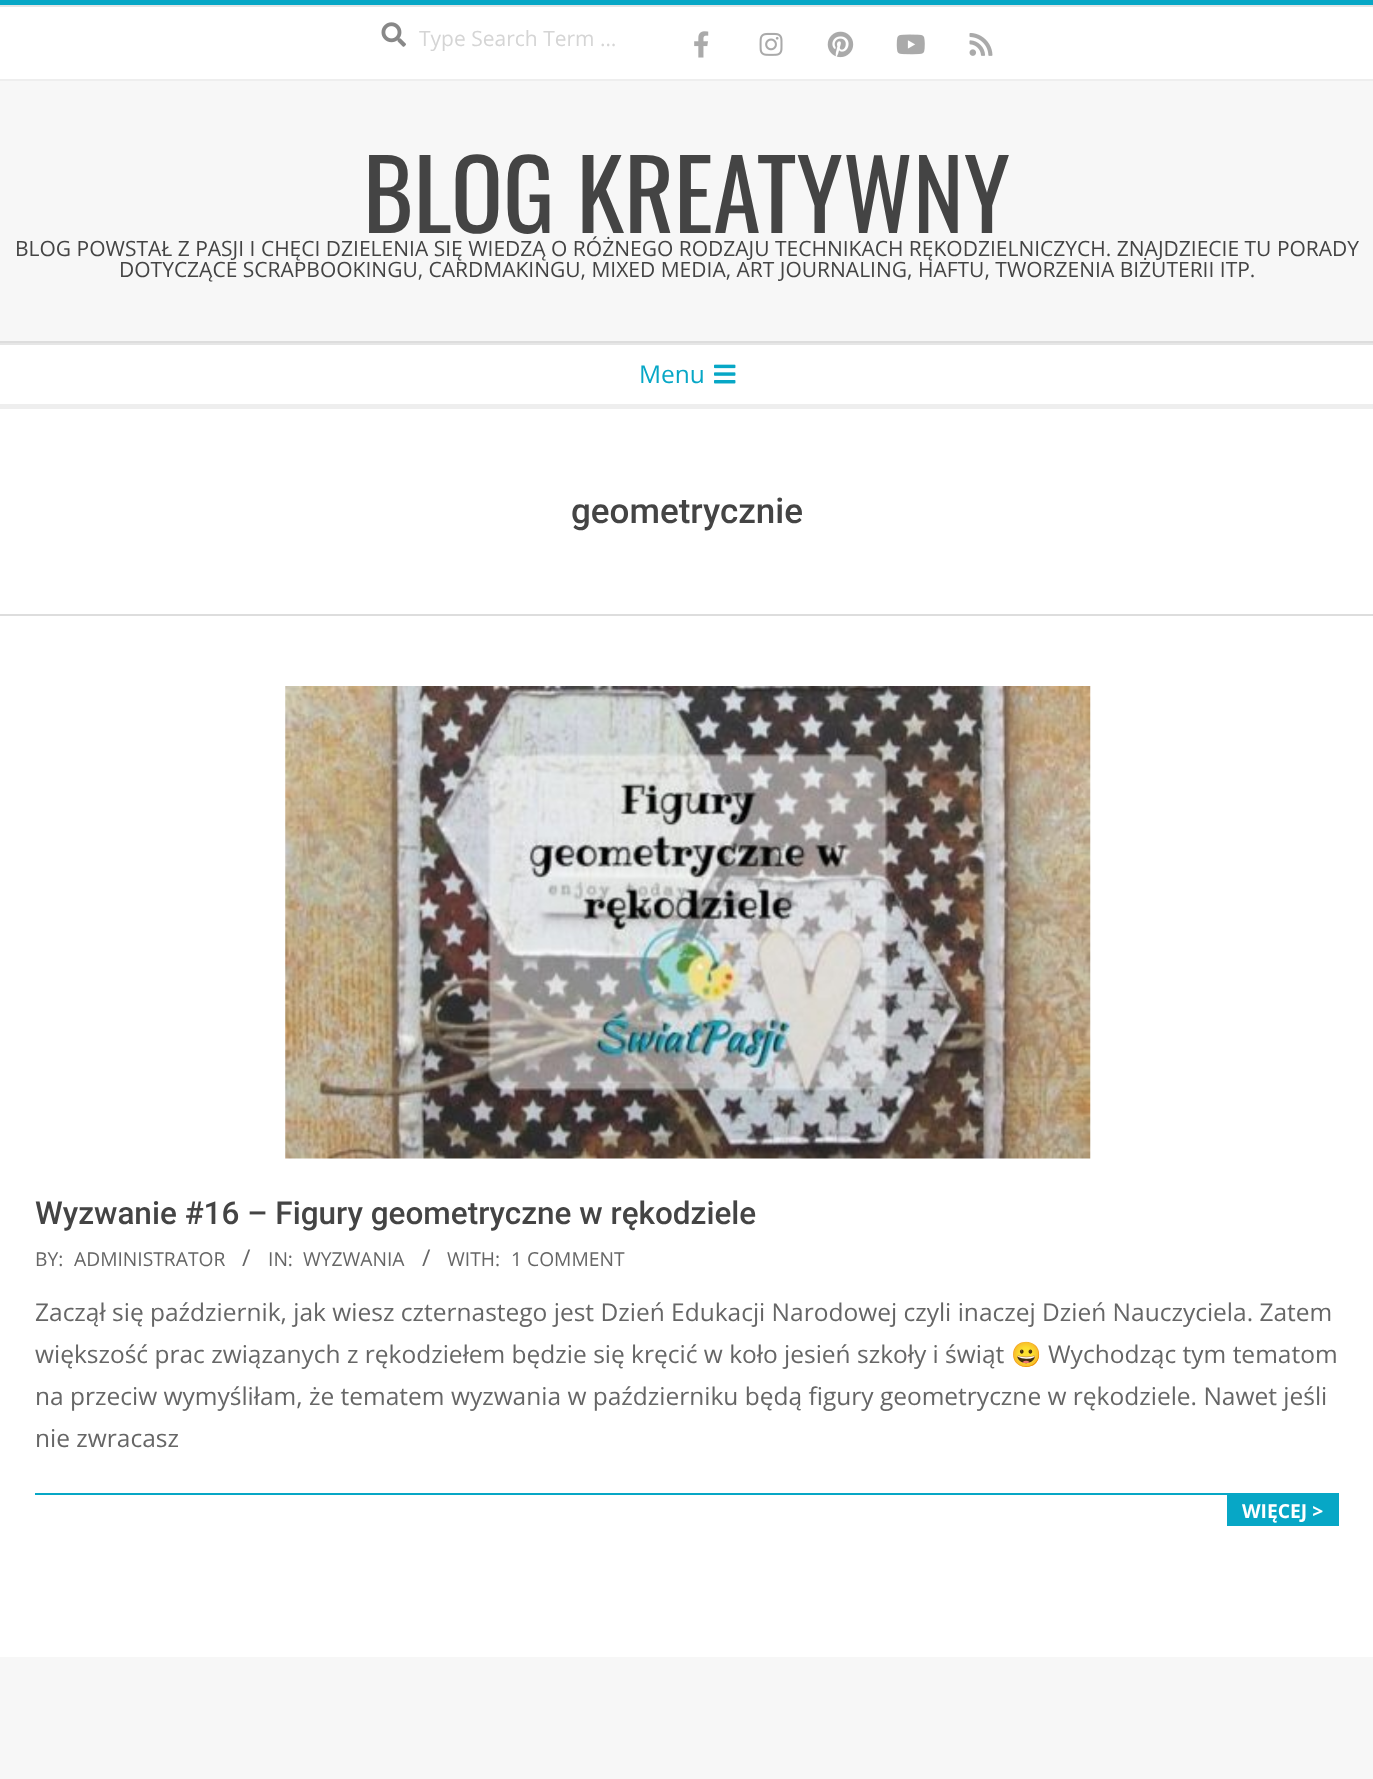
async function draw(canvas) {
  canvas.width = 1373
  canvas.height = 1779
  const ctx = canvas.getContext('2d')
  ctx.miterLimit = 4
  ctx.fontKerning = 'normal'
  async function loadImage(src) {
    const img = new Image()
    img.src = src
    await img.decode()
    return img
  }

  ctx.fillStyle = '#f7f7f7'
  ctx.fillRect(0, 0, 1373, 1779)
  ctx.fillStyle = '#07a7c6'
  ctx.fillRect(0, 0, 1373, 5)
  ctx.fillStyle = '#fff'
  ctx.fillRect(0, 7, 1373, 72)
  ctx.fillStyle = '#eee'
  ctx.fillRect(0, 79, 1373, 2)
  ctx.fillStyle = '#e5e5e5'
  ctx.fillRect(0, 5, 1373, 2)
  ctx.drawImage(await loadImage('image0.png'), 381, 22, 25, 25)
  ctx.font = '21px Open Sans'
  ctx.fillStyle = '#d5d5d5'
  ctx.fillText('Type Search Term …', 419, 46)
  ctx.drawImage(await loadImage('image1.png'), 694, 31, 15, 27)
  ctx.drawImage(await loadImage('image2.png'), 759, 32, 24, 24)
  ctx.drawImage(await loadImage('image3.png'), 827, 31, 27, 27)
  ctx.drawImage(await loadImage('image4.png'), 896, 34, 29, 21)
  ctx.drawImage(await loadImage('image5.png'), 969, 33, 24, 23)
  ctx.fillStyle = '#ddd'
  ctx.fillRect(0, 341, 1373, 2)
  ctx.font = '96.25px Oswald'
  ctx.fillStyle = '#444'
  ctx.fillText('BLOG KREATYWNY', 363, 233)
  ctx.font = '21px Open Sans'
  ctx.fillText('BLOG POWSTAŁ Z PASJI I CHĘCI DZIELENIA SIĘ WIEDZĄ O RÓŻNEGO RODZAJU TECHNIKACH RĘKODZIELNICZYCH. ZNAJDZIECIE TU PORADY', 15, 256)
  ctx.fillText('DOTYCZĄCE SCRAPBOOKINGU, CARDMAKINGU, MIXED MEDIA, ART JOURNALING, HAFTU, TWORZENIA BIŻUTERII ITP.', 119, 277)
  ctx.fillStyle = '#fff'
  ctx.fillRect(0, 345, 1373, 1312)
  ctx.fillStyle = '#eee'
  ctx.fillRect(0, 404, 1373, 5)
  ctx.fillStyle = '#e6e6e6'
  ctx.fillRect(0, 343, 1373, 2)
  ctx.font = '24.5px Open Sans'
  ctx.fillStyle = '#07a7c6'
  ctx.fillText('Menu', 639, 383)
  ctx.drawImage(await loadImage('image6.png'), 714, 364, 22, 20)
  ctx.fillStyle = '#ddd'
  ctx.fillRect(0, 614, 1373, 2)
  ctx.font = '500 35px Roboto'
  ctx.fillStyle = '#444'
  ctx.fillText('geometrycznie', 571, 523)
  ctx.drawImage(await loadImage('image7.png'), 285, 686, 806, 473)
  ctx.font = '500 31.5px Roboto'
  ctx.fillText('Wyzwanie #16 – Figury geometryczne w rękodziele', 35, 1224)
  ctx.font = '19.25px Open Sans'
  ctx.fillStyle = '#666'
  ctx.fillText('BY:', 35, 1266)
  ctx.fillText('ADMINISTRATOR', 74, 1266)
  ctx.font = '23px Open Sans'
  ctx.fillText('/', 242, 1266)
  ctx.font = '19.25px Open Sans'
  ctx.fillText('IN:', 268, 1266)
  ctx.fillText('WYZWANIA', 303, 1266)
  ctx.font = '23px Open Sans'
  ctx.fillText('/', 422, 1266)
  ctx.font = '19.25px Open Sans'
  ctx.fillText('WITH:', 447, 1266)
  ctx.fillText('1 COMMENT', 511, 1266)
  ctx.font = '24.5px Open Sans'
  ctx.fillText('Zaczął się październik, jak wiesz czternastego jest Dzień Edukacji Narodowej czyli inaczej Dzień Nauczyciela. Zatem', 35, 1321)
  ctx.fillText('większość prac związanych z rękodziełem będzie się kręcić w koło jesień szkoły i świąt', 35, 1363)
  ctx.font = '24.5px Noto Color Emoji'
  ctx.fillText('😀', 1011, 1363)
  ctx.font = '24.5px Open Sans'
  ctx.fillText('Wychodząc tym tematom', 1048, 1363)
  ctx.fillText('na przeciw wymyśliłam, że tematem wyzwania w październiku będą figury geometryczne w rękodziele. Nawet jeśli', 35, 1405)
  ctx.fillText('nie zwracasz', 35, 1447)
  ctx.fillStyle = '#07a7c6'
  ctx.fillRect(35, 1493, 1304, 2)
  ctx.fillRect(1227, 1495, 112, 31)
  ctx.font = 'bold 19.25px Open Sans'
  ctx.fillStyle = '#fff'
  ctx.fillText('WIĘCEJ >', 1242, 1518)
}

draw(document.querySelector('canvas'))
